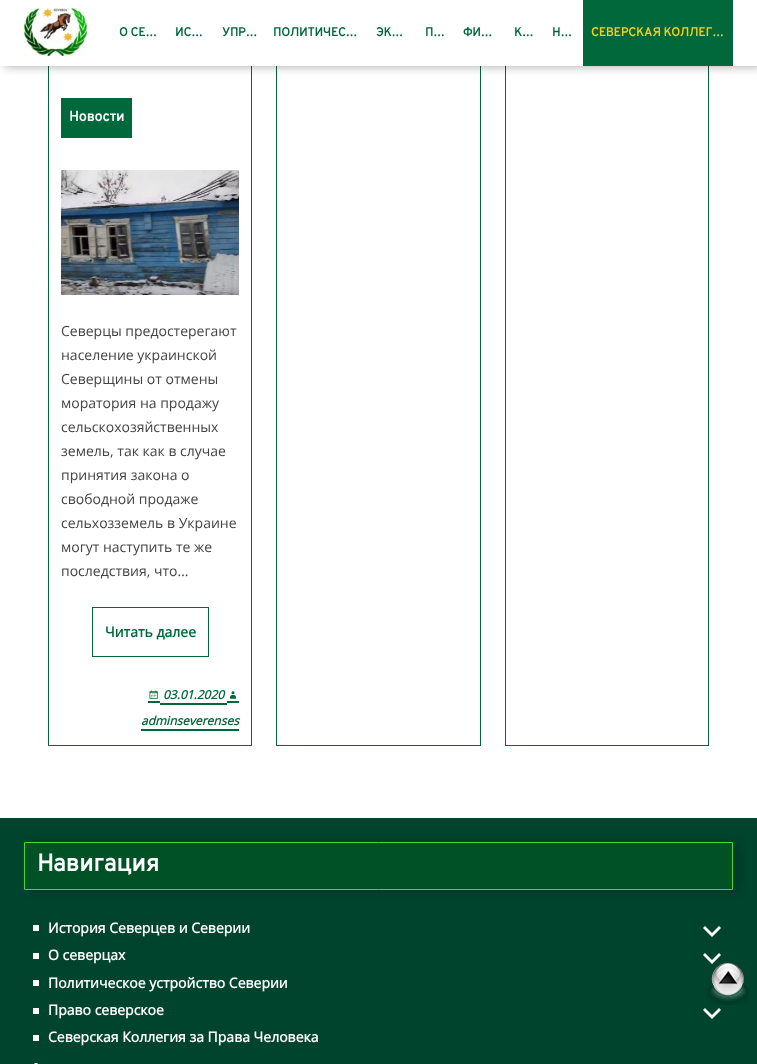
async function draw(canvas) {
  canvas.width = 757
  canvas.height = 1064
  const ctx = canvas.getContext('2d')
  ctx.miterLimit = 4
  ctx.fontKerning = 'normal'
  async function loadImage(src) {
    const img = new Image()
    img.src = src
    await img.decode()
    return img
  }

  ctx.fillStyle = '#fff'
  ctx.fillRect(0, 0, 757, 1064)
  ctx.strokeStyle = '#00683b'
  ctx.strokeRect(48.5, -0.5, 203, 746)
  ctx.strokeRect(276.5, -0.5, 204, 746)
  ctx.strokeRect(505.5, -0.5, 203, 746)
  ctx.fillStyle = '#0000004d'
  ctx.filter = 'blur(5px)'
  ctx.beginPath()
  ctx.rect(5, 1, 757, 66)
  ctx.fill()
  ctx.filter = 'none'
  ctx.fillStyle = '#fff'
  ctx.fillRect(0, 0, 757, 66)
  ctx.drawImage(await loadImage('image0.png'), 24, 8, 63, 48)
  ctx.font = 'bold 12px Overpass'
  ctx.fillStyle = '#00683b'
  ctx.fillText('О СЕ…', 119, 36)
  ctx.fillText('ИС…', 175, 36)
  ctx.fillText('УПР…', 222, 36)
  ctx.fillText('ПОЛИТИЧЕС…', 273, 36)
  ctx.fillText('ЭК…', 376, 36)
  ctx.fillText('П…', 425, 36)
  ctx.fillText('ФИ…', 463, 36)
  ctx.fillText('К…', 514, 36)
  ctx.fillText('Н…', 552, 36)
  ctx.fillRect(583, 0, 150, 66)
  ctx.fillStyle = '#f9ce15'
  ctx.fillText('СЕВЕРСКАЯ КОЛЛЕГ…', 591, 36)
  ctx.fillStyle = '#00683b'
  ctx.fillRect(61, 98, 71, 40)
  ctx.font = 'bold 14px Overpass'
  ctx.fillStyle = '#fff'
  ctx.fillText('Новости', 69, 121)
  ctx.drawImage(await loadImage('image1.png'), 61, 170, 178, 125)
  ctx.font = '14px Open Sans'
  ctx.fillStyle = '#444'
  ctx.fillText('Северцы предостерегают', 61, 336)
  ctx.fillText('население украинской', 61, 360)
  ctx.fillText('Северщины от отмены', 61, 384)
  ctx.fillText('моратория на продажу', 61, 408)
  ctx.fillText('сельскохозяйственных', 61, 432)
  ctx.fillText('земель, так как в случае', 61, 456)
  ctx.fillText('принятия закона о', 61, 480)
  ctx.fillText('свободной продаже', 61, 504)
  ctx.fillText('сельхозземель в Украине', 61, 528)
  ctx.fillText('могут наступить те же', 61, 552)
  ctx.fillText('последствия, что…', 61, 576)
  ctx.strokeRect(92.5, 607.5, 116, 49)
  ctx.font = 'bold 14px Open Sans'
  ctx.fillStyle = '#00683b'
  ctx.fillText('Читать далее', 105, 637)
  ctx.fillRect(148, 701, 12, 2)
  ctx.fillRect(160, 703, 67, 2)
  ctx.fillRect(227, 701, 12, 2)
  ctx.fillRect(141, 729, 98, 2)
  ctx.drawImage(await loadImage('image2.png'), 149, 690, 9, 9)
  ctx.font = 'italic bold 12px Open Sans'
  ctx.fillText('03.01.2020', 163, 699)
  ctx.drawImage(await loadImage('image3.png'), 230, 691, 6, 8)
  ctx.fillText('adminseverenses', 141, 725)
  ctx.fillStyle = '#00442d'
  ctx.fillRect(0, 818, 757, 246)
  ctx.fillStyle = '#00000033'
  ctx.filter = 'blur(5px)'
  ctx.beginPath()
  ctx.rect(29, 843, 709, 48)
  ctx.fill()
  ctx.filter = 'none'
  ctx.fillStyle = '#005126'
  ctx.beginPath()
  ctx.rect(24.5, 842.5, 708, 47)
  ctx.fill()
  ctx.strokeStyle = '#3bdd33'
  ctx.stroke()
  ctx.font = 'bold 24px Overpass'
  ctx.fillStyle = '#fff'
  ctx.fillText('Навигация', 37, 871)
  ctx.fillRect(33, 925, 6, 6)
  ctx.font = 'bold 14px Open Sans'
  ctx.fillText('История Северцев и Северии', 48, 933)
  ctx.beginPath()
  ctx.moveTo(719, 926)
  ctx.lineTo(721, 928)
  ctx.lineTo(712, 937)
  ctx.lineTo(703, 928)
  ctx.lineTo(705, 926)
  ctx.lineTo(712, 933)
  ctx.closePath()
  ctx.fill()
  ctx.fillRect(33, 953, 6, 6)
  ctx.fillText('О северцах', 48, 960)
  ctx.beginPath()
  ctx.moveTo(719, 953)
  ctx.lineTo(721, 955)
  ctx.lineTo(712, 964)
  ctx.lineTo(703, 955)
  ctx.lineTo(705, 953)
  ctx.lineTo(712, 960)
  ctx.closePath()
  ctx.fill()
  ctx.fillRect(33, 980, 6, 6)
  ctx.fillText('Политическое устройство Северии', 48, 988)
  ctx.fillRect(33, 1008, 6, 6)
  ctx.fillText('Право северское', 48, 1015)
  ctx.beginPath()
  ctx.moveTo(719, 1008)
  ctx.lineTo(721, 1010)
  ctx.lineTo(712, 1019)
  ctx.lineTo(703, 1010)
  ctx.lineTo(705, 1008)
  ctx.lineTo(712, 1015)
  ctx.closePath()
  ctx.fill()
  ctx.fillRect(33, 1035, 6, 6)
  ctx.fillText('Северская Коллегия за Права Человека', 48, 1042)
  ctx.drawImage(await loadImage('image4.png'), 33, 1063, 6, 1)
  ctx.drawImage(await loadImage('image5.png'), 706, 963, 44, 42)
}

draw(document.querySelector('canvas'))
